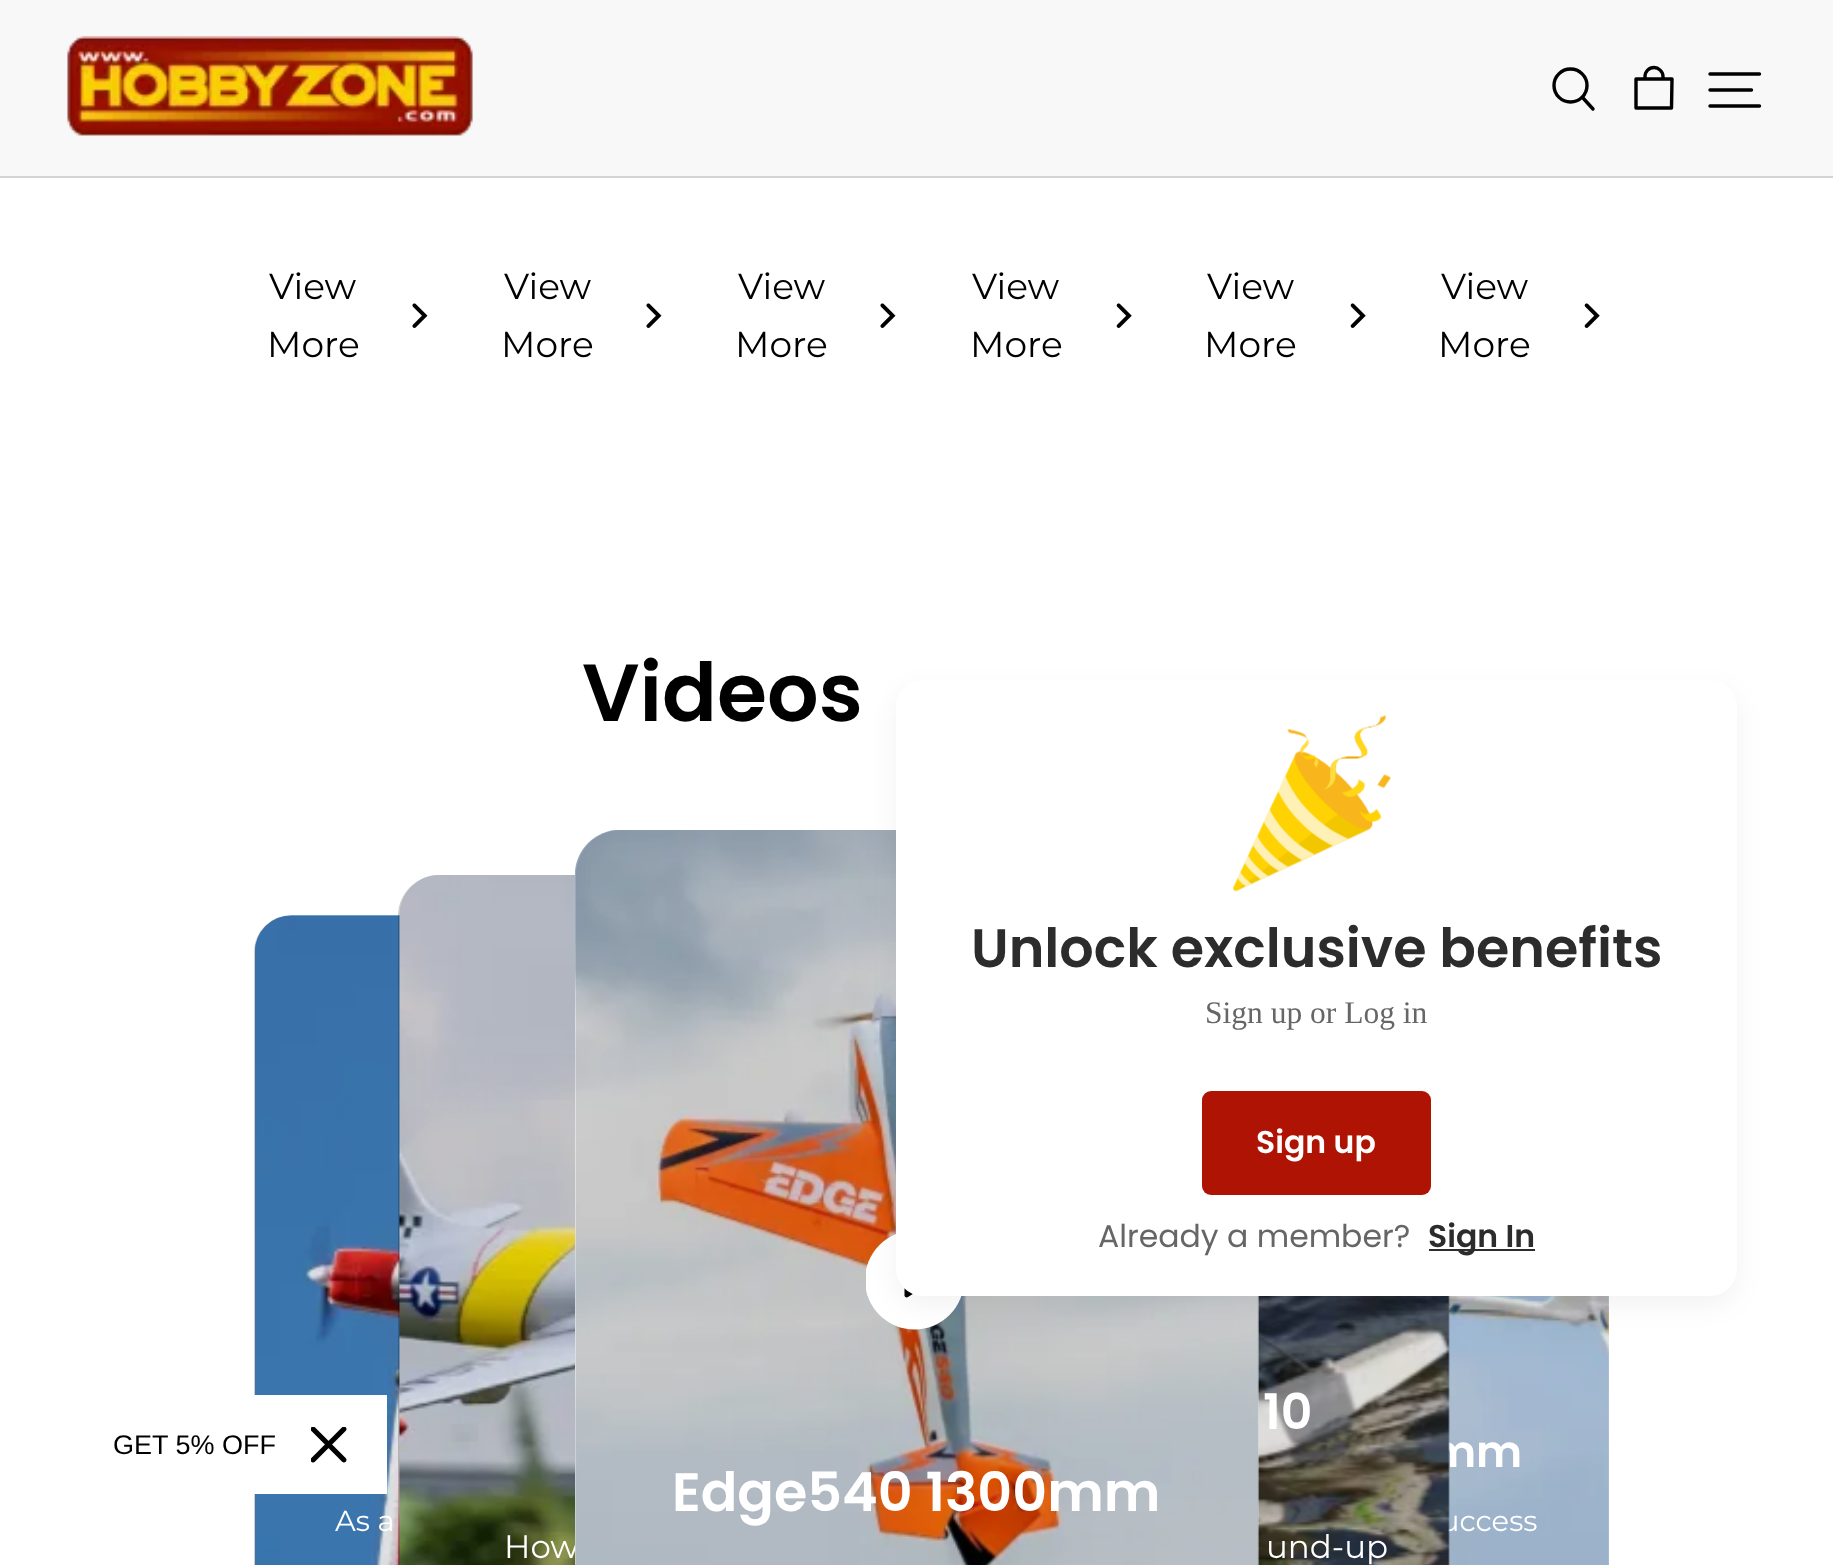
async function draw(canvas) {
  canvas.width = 1833
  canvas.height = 1565
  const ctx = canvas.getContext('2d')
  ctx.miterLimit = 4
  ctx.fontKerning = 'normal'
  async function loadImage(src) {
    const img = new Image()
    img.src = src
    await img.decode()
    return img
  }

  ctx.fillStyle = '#fff'
  ctx.fillRect(0, 0, 1833, 1565)
  ctx.fillStyle = '#f8f8f8'
  ctx.fillRect(0, 0, 1833, 176)
  ctx.drawImage(await loadImage('image0.png'), 67, 36, 406, 100)
  ctx.beginPath()
  ctx.arc(1570.5, 85.5, 16.5, 0, 2 * Math.PI)
  ctx.strokeStyle = '#000'
  ctx.lineWidth = 3.4
  ctx.stroke()
  ctx.beginPath()
  ctx.moveTo(1583, 98)
  ctx.lineTo(1593, 109)
  ctx.lineCap = 'round'
  ctx.stroke()
  ctx.beginPath()
  ctx.moveTo(1636, 108)
  ctx.lineTo(1636, 79)
  ctx.lineTo(1672, 79)
  ctx.lineTo(1671.5, 108)
  ctx.closePath()
  ctx.moveTo(1645, 79)
  ctx.lineTo(1645, 76.5)
  ctx.bezierCurveTo(1645, 71.5, 1649, 67.5, 1654, 67.5)
  ctx.bezierCurveTo(1658.5, 67.5, 1663, 71.5, 1663, 76.5)
  ctx.lineTo(1663, 79)
  ctx.lineJoin = 'round'
  ctx.stroke()
  ctx.beginPath()
  ctx.moveTo(1710, 74)
  ctx.lineTo(1759.5, 74)
  ctx.moveTo(1710, 90)
  ctx.lineTo(1751.5, 90)
  ctx.moveTo(1710, 106)
  ctx.lineTo(1759.5, 106)
  ctx.lineJoin = 'miter'
  ctx.stroke()
  ctx.fillStyle = '#d3d3d3'
  ctx.fillRect(0, 176, 1833, 2)
  ctx.font = '100 36px Montserrat'
  ctx.fillStyle = '#000'
  ctx.fillText('View', 269, 299)
  ctx.drawImage(await loadImage('image1.png'), 412, 303, 16, 25)
  ctx.fillText('More', 267, 357)
  ctx.fillText('View', 504, 299)
  ctx.drawImage(await loadImage('image1.png'), 646, 303, 16, 25)
  ctx.fillText('More', 501, 357)
  ctx.fillText('View', 738, 299)
  ctx.drawImage(await loadImage('image1.png'), 880, 303, 16, 25)
  ctx.fillText('More', 735, 357)
  ctx.fillText('View', 972, 299)
  ctx.drawImage(await loadImage('image2.png'), 1116, 303, 16, 25)
  ctx.fillText('More', 970, 357)
  ctx.fillText('View', 1207, 299)
  ctx.drawImage(await loadImage('image2.png'), 1350, 303, 16, 25)
  ctx.fillText('More', 1204, 357)
  ctx.fillText('View', 1441, 299)
  ctx.drawImage(await loadImage('image2.png'), 1584, 303, 16, 25)
  ctx.fillText('More', 1438, 357)
  ctx.font = '600 81px Poppins'
  ctx.fillText('Videos', 582, 721)
  ctx.fillStyle = '#e6e6e6'
  ctx.beginPath()
  ctx.moveTo(290, 916)
  ctx.lineTo(603, 916)
  ctx.lineTo(603, 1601)
  ctx.lineTo(290, 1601)
  ctx.bezierCurveTo(270, 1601, 254, 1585, 254, 1565)
  ctx.lineTo(254, 952)
  ctx.bezierCurveTo(254, 932, 270, 916, 290, 916)
  ctx.closePath()
  ctx.fill()
  ctx.drawImage(await loadImage('image3.png'), 255, 915, 145, 650)
  ctx.fillStyle = '#0000001a'
  ctx.beginPath()
  ctx.moveTo(290, 916)
  ctx.lineTo(603, 916)
  ctx.lineTo(603, 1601)
  ctx.lineTo(290, 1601)
  ctx.bezierCurveTo(270, 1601, 254, 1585, 254, 1565)
  ctx.lineTo(254, 952)
  ctx.bezierCurveTo(254, 932, 270, 916, 290, 916)
  ctx.closePath()
  ctx.fill()
  ctx.font = '100 29px Montserrat'
  ctx.fillStyle = '#fff'
  ctx.fillText('As a', 335, 1531)
  ctx.drawImage(await loadImage('image6.png'), 1448, 1296, 161, 269)
  ctx.fillStyle = '#0000001a'
  ctx.fillRect(1448, 1296, 161, 269)
  ctx.font = '600 44px Poppins'
  ctx.fillStyle = '#fff'
  ctx.fillText('mm', 1430, 1467)
  ctx.font = '100 29px Montserrat'
  ctx.fillText('uccess', 1440, 1531)
  ctx.drawImage(await loadImage('image5.png'), 1257, 1296, 193, 269)
  ctx.fillStyle = '#0000001a'
  ctx.fillRect(1257, 1296, 192, 269)
  ctx.beginPath()
  ctx.moveTo(439, 875)
  ctx.lineTo(785, 875)
  ctx.lineTo(785, 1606)
  ctx.lineTo(439, 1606)
  ctx.bezierCurveTo(416.5, 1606, 398, 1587.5, 398, 1565)
  ctx.lineTo(398, 916)
  ctx.bezierCurveTo(398, 893.5, 416.5, 875, 439, 875)
  ctx.closePath()
  ctx.fill()
  ctx.drawImage(await loadImage('image7.png'), 399, 875, 176, 690)
  ctx.beginPath()
  ctx.moveTo(439, 875)
  ctx.lineTo(785, 875)
  ctx.lineTo(785, 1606)
  ctx.lineTo(439, 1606)
  ctx.bezierCurveTo(416.5, 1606, 398, 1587.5, 398, 1565)
  ctx.lineTo(398, 916)
  ctx.bezierCurveTo(398, 893.5, 416.5, 875, 439, 875)
  ctx.closePath()
  ctx.fill()
  ctx.font = '100 32.5px Montserrat'
  ctx.fillStyle = '#fff'
  ctx.fillText('How', 504, 1558)
  ctx.drawImage(await loadImage('image4.png'), 575, 830, 684, 735)
  ctx.fillStyle = '#0000001a'
  ctx.beginPath()
  ctx.roundRect(576, 830, 682, 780, 45)
  ctx.fill()
  ctx.save()
  ctx.beginPath()
  ctx.rect(866, 1231, 99, 99)
  ctx.clip()
  ctx.fillStyle = '#fff'
  ctx.beginPath()
  ctx.arc(914.5, 1280, 49.5, 0, 2 * Math.PI)
  ctx.fill()
  ctx.restore()
  ctx.fillStyle = '#000'
  ctx.beginPath()
  ctx.moveTo(932, 1282)
  ctx.lineTo(908, 1297)
  ctx.bezierCurveTo(906.5, 1298, 904.5, 1297, 904.5, 1295.5)
  ctx.lineTo(904.5, 1265)
  ctx.bezierCurveTo(904.5, 1263.5, 906.5, 1262.5, 908, 1263.5)
  ctx.lineTo(932, 1278.5)
  ctx.bezierCurveTo(933.5, 1279, 933.5, 1281.5, 932, 1282)
  ctx.closePath()
  ctx.fill()
  ctx.font = '600 54px Poppins'
  ctx.fillStyle = '#fff'
  ctx.fillText('Edge540 1300mm', 672, 1511)
  ctx.font = '600 49px Poppins'
  ctx.fillText('10', 1263, 1429)
  ctx.font = '100 32.5px Montserrat'
  ctx.fillText('und-up', 1266, 1558)
  ctx.fillStyle = '#0000000d'
  ctx.filter = 'blur(13.5px)'
  ctx.beginPath()
  ctx.roundRect(896, 689, 841, 616, 27)
  ctx.fill()
  ctx.filter = 'none'
  ctx.fillStyle = '#fff'
  ctx.beginPath()
  ctx.roundRect(896, 680, 841, 616, 27)
  ctx.fill()
  ctx.drawImage(await loadImage('image8.png'), 1233, 715, 159, 177)
  ctx.font = '600 54px Poppins'
  ctx.fillStyle = '#2c2c2c'
  ctx.fillText('Unlock exclusive benefits', 971, 967)
  ctx.font = '31.5px Liberation Serif'
  ctx.fillStyle = '#666'
  ctx.fillText('Sign up or Log in', 1205, 1023)
  ctx.fillStyle = '#af1304'
  ctx.beginPath()
  ctx.roundRect(1202, 1091, 229, 104, 9)
  ctx.fill()
  ctx.font = '600 31.5px Poppins'
  ctx.fillStyle = '#fff'
  ctx.fillText('Sign up', 1256, 1153)
  ctx.font = '31.5px Poppins'
  ctx.fillStyle = '#666'
  ctx.fillText('Already a member?', 1098, 1247)
  ctx.fillStyle = '#2c2c2c'
  ctx.fillRect(1429, 1249, 106, 2)
  ctx.font = '600 31.5px Poppins'
  ctx.fillText('Sign In', 1428, 1247)
  ctx.fillStyle = '#fff'
  ctx.fillRect(254, 1395, 133, 99)
  ctx.font = '27px Liberation Sans'
  ctx.fillStyle = '#000'
  ctx.fillText('GET 5% OFF', 113, 1454)
  ctx.drawImage(await loadImage('image9.png'), 311, 1427, 36, 36)
}

draw(document.querySelector('canvas'))
